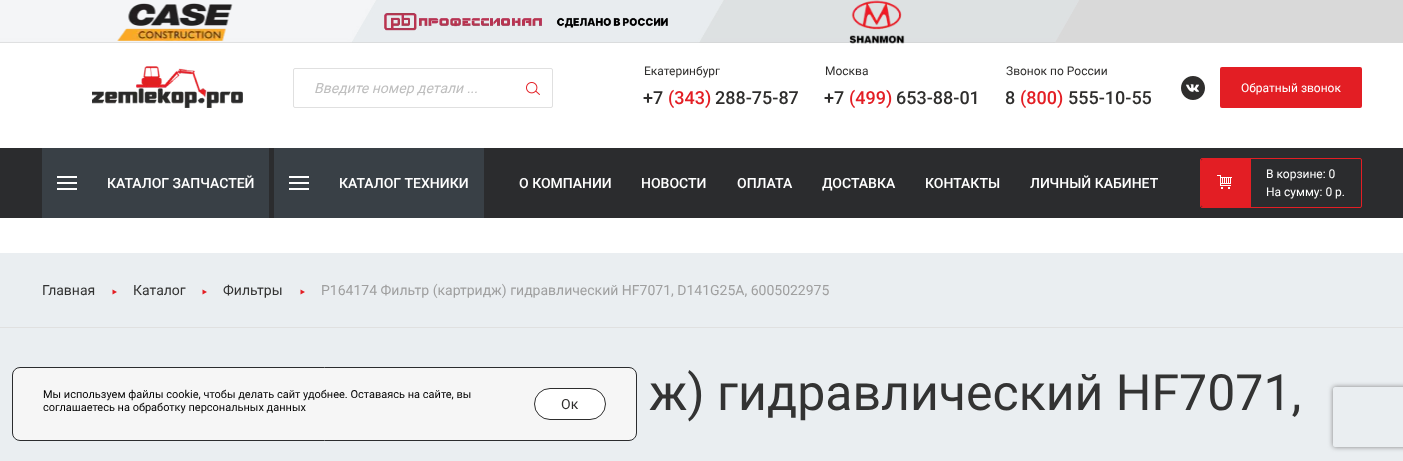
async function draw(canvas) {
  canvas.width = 1403
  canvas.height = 461
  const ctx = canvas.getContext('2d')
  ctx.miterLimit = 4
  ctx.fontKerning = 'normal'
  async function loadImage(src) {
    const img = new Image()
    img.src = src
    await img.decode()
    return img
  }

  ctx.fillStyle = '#fff'
  ctx.fillRect(0, 0, 1403, 461)
  ctx.drawImage(await loadImage('image0.png'), 0, 0, 1403, 43)
  ctx.drawImage(await loadImage('image1.png'), 117, 3, 116, 38)
  ctx.drawImage(await loadImage('image2.png'), 384, 13, 284, 18)
  ctx.drawImage(await loadImage('image3.png'), 849, 0, 56, 44)
  ctx.drawImage(await loadImage('image4.png'), 92, 66, 151, 42)
  ctx.beginPath()
  ctx.roundRect(293.5, 68.5, 259, 39, 1.5)
  ctx.strokeStyle = '#e0e0e0'
  ctx.stroke()
  ctx.font = 'italic 14px Roboto'
  ctx.fillStyle = '#bebebe'
  ctx.fillText('Введите номер детали ...', 314, 93)
  ctx.drawImage(await loadImage('image5.png'), 526, 82, 14, 13)
  ctx.font = '12px Roboto'
  ctx.fillStyle = '#2f2e2d'
  ctx.fillText('Екатеринбург', 644, 75)
  ctx.font = '500 18px Roboto'
  ctx.fillText('+7', 643, 104)
  ctx.fillStyle = '#e31e24'
  ctx.fillText('(343)', 668, 104)
  ctx.fillStyle = '#2f2e2d'
  ctx.fillText('288-75-87', 715, 104)
  ctx.font = '12px Roboto'
  ctx.fillText('Москва', 825, 75)
  ctx.font = '500 18px Roboto'
  ctx.fillText('+7', 824, 104)
  ctx.fillStyle = '#e31e24'
  ctx.fillText('(499)', 849, 104)
  ctx.fillStyle = '#2f2e2d'
  ctx.fillText('653-88-01', 896, 104)
  ctx.font = '12px Roboto'
  ctx.fillText('Звонок по России', 1006, 75)
  ctx.font = '500 18px Roboto'
  ctx.fillText('8', 1005, 104)
  ctx.fillStyle = '#e31e24'
  ctx.fillText('(800)', 1020, 104)
  ctx.fillStyle = '#2f2e2d'
  ctx.fillText('555-10-55', 1068, 104)
  ctx.drawImage(await loadImage('image6.png'), 1181, 76, 24, 24)
  ctx.fillStyle = '#e31e24'
  ctx.beginPath()
  ctx.roundRect(1220, 67, 142, 41, 2)
  ctx.fill()
  ctx.font = '12px Roboto'
  ctx.fillStyle = '#fff'
  ctx.fillText('Обратный звонок', 1241, 92)
  ctx.fillStyle = '#2b2c2e'
  ctx.fillRect(0, 148, 1403, 70)
  ctx.fillStyle = '#394046'
  ctx.fillRect(42, 148, 227, 70)
  ctx.fillStyle = '#fff'
  ctx.fillRect(57, 176, 20, 2)
  ctx.fillRect(57, 182, 20, 2)
  ctx.fillRect(57, 188, 20, 2)
  ctx.font = '500 14px Roboto'
  ctx.fillText('КАТАЛОГ ЗАПЧАСТЕЙ', 107, 188)
  ctx.fillStyle = '#394046'
  ctx.fillRect(274, 148, 210, 70)
  ctx.fillStyle = '#fff'
  ctx.fillRect(289, 176, 20, 2)
  ctx.fillRect(289, 182, 20, 2)
  ctx.fillRect(289, 188, 20, 2)
  ctx.fillText('КАТАЛОГ ТЕХНИКИ', 339, 188)
  ctx.fillText('О КОМПАНИИ', 519, 188)
  ctx.fillText('НОВОСТИ', 641, 188)
  ctx.fillText('ОПЛАТА', 737, 188)
  ctx.fillText('ДОСТАВКА', 822, 188)
  ctx.fillText('КОНТАКТЫ', 925, 188)
  ctx.fillText('ЛИЧНЫЙ КАБИНЕТ', 1030, 188)
  ctx.beginPath()
  ctx.roundRect(1200.5, 158.5, 161, 49, 1.5)
  ctx.strokeStyle = '#e31e24'
  ctx.stroke()
  ctx.fillStyle = '#e31e24'
  ctx.beginPath()
  ctx.roundRect(1201, 159, 50, 48, [2, 0, 0, 2])
  ctx.fill()
  ctx.drawImage(await loadImage('image7.png'), 1217, 175, 15, 14)
  ctx.font = '12px Roboto'
  ctx.fillStyle = '#fff'
  ctx.fillText('В корзине: 0', 1266, 178)
  ctx.fillText('На сумму: 0 р.', 1266, 196)
  ctx.fillStyle = '#eaeef1'
  ctx.fillRect(0, 253, 1403, 208)
  ctx.fillStyle = '#e0e0e0'
  ctx.fillRect(0, 327, 1403, 1)
  ctx.font = '14px Roboto'
  ctx.fillStyle = '#333'
  ctx.fillText('Главная', 42, 295)
  ctx.fillStyle = '#e31e24'
  ctx.beginPath()
  ctx.moveTo(112.5, 289.5)
  ctx.lineTo(117, 292)
  ctx.lineTo(112.5, 294.5)
  ctx.closePath()
  ctx.fill()
  ctx.fillStyle = '#333'
  ctx.fillText('Каталог', 133, 295)
  ctx.fillStyle = '#e31e24'
  ctx.beginPath()
  ctx.moveTo(202.5, 289.5)
  ctx.lineTo(207, 292)
  ctx.lineTo(202.5, 294.5)
  ctx.closePath()
  ctx.fill()
  ctx.fillStyle = '#333'
  ctx.fillText('Фильтры', 223, 295)
  ctx.fillStyle = '#e31e24'
  ctx.beginPath()
  ctx.moveTo(300.5, 289.5)
  ctx.lineTo(305, 292)
  ctx.lineTo(300.5, 294.5)
  ctx.closePath()
  ctx.fill()
  ctx.fillStyle = '#9f9f9f'
  ctx.fillText('P164174 Фильтр (картридж) гидравлический HF7071, D141G25A, 6005022975', 321, 295)
  ctx.font = '50px Roboto'
  ctx.fillStyle = '#333'
  ctx.fillText('ж) гидравлический HF7071,', 649, 410)
  ctx.save()
  ctx.beginPath()
  ctx.moveTo(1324, 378)
  ctx.lineTo(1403, 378)
  ctx.lineTo(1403, 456)
  ctx.lineTo(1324, 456)
  ctx.closePath()
  ctx.moveTo(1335, 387)
  ctx.lineTo(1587, 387)
  ctx.bezierCurveTo(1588, 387, 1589, 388, 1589, 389)
  ctx.lineTo(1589, 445)
  ctx.bezierCurveTo(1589, 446, 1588, 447, 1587, 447)
  ctx.lineTo(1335, 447)
  ctx.bezierCurveTo(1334, 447, 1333, 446, 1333, 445)
  ctx.lineTo(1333, 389)
  ctx.bezierCurveTo(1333, 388, 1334, 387, 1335, 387)
  ctx.closePath()
  ctx.clip('evenodd')
  ctx.fillStyle = '#808080'
  ctx.filter = 'blur(2.5px)'
  ctx.beginPath()
  ctx.roundRect(1333, 387, 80, 60, 2)
  ctx.fill()
  ctx.filter = 'none'
  ctx.restore()
  ctx.fillStyle = '#f6f6f6'
  ctx.beginPath()
  ctx.roundRect(12.5, 367.5, 624, 73, 7.5)
  ctx.fill()
  ctx.strokeStyle = '#2b2c2e'
  ctx.stroke()
  ctx.font = '11px Roboto'
  ctx.fillStyle = '#000'
  ctx.fillText('Мы используем файлы cookie, чтобы делать сайт удобнее. Оставаясь на сайте, вы', 43, 398)
  ctx.fillText('соглашаетесь на обработку персональных данных', 43, 411)
  ctx.fillStyle = '#fff'
  ctx.beginPath()
  ctx.roundRect(534.5, 388.5, 71, 31, 15.5)
  ctx.fill()
  ctx.strokeStyle = '#2d2d2d'
  ctx.stroke()
  ctx.font = '14px Roboto'
  ctx.fillStyle = '#2f2e2d'
  ctx.fillText('Ок', 561, 409)
}

draw(document.querySelector('canvas'))
